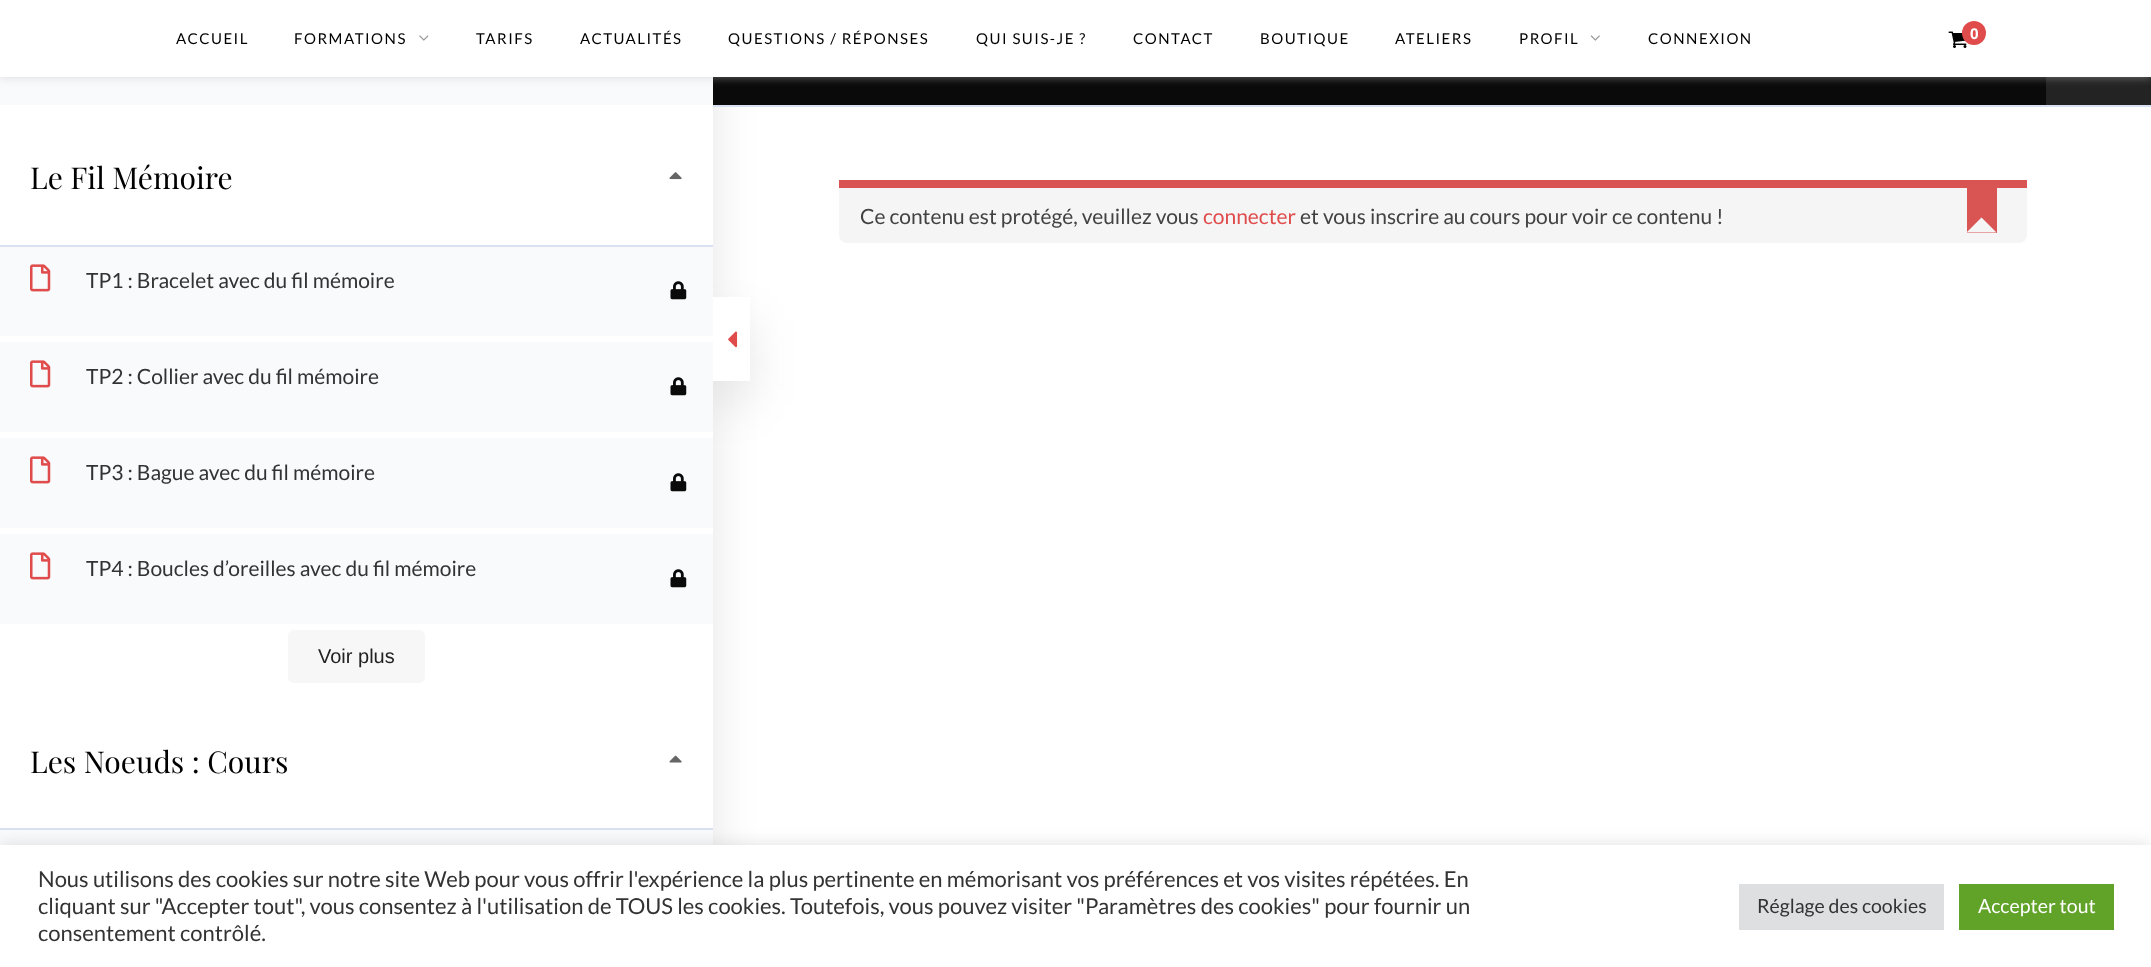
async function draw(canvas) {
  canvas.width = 2151
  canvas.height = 967
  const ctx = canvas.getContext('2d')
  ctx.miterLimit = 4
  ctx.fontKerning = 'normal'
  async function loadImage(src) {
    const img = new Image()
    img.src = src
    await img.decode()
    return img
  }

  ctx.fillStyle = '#fff'
  ctx.fillRect(0, 0, 2151, 967)
  ctx.fillStyle = '#0000001a'
  ctx.filter = 'blur(22.5px)'
  ctx.beginPath()
  ctx.rect(0, 23, 713, 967)
  ctx.fill()
  ctx.filter = 'none'
  ctx.fillStyle = '#0a0a0a'
  ctx.fillRect(713, 77, 1333, 28)
  ctx.fillStyle = '#232323'
  ctx.fillRect(2046, 77, 105, 28)
  ctx.fillStyle = '#f9fafc'
  ctx.fillRect(0, 77, 713, 28)
  ctx.fillStyle = '#bebebe75'
  ctx.filter = 'blur(4px)'
  ctx.beginPath()
  ctx.rect(0, 2, 2151, 76)
  ctx.fill()
  ctx.filter = 'none'
  ctx.fillStyle = '#fff'
  ctx.fillRect(0, 0, 2151, 77)
  ctx.letterSpacing = '1.5px'
  ctx.font = '15px Lato'
  ctx.fillStyle = '#000'
  ctx.fillText('ACCUEIL', 176, 44)
  ctx.fillText('FORMATIONS', 294, 44)
  ctx.drawImage(await loadImage('image0.png'), 419, 35, 10, 6)
  ctx.fillText('TARIFS', 476, 44)
  ctx.fillText('ACTUALITÉS', 580, 44)
  ctx.fillText('QUESTIONS / RÉPONSES', 728, 44)
  ctx.fillText('QUI SUIS-JE ?', 976, 44)
  ctx.fillText('CONTACT', 1133, 44)
  ctx.fillText('BOUTIQUE', 1260, 44)
  ctx.fillText('ATELIERS', 1395, 44)
  ctx.fillText('PROFIL', 1519, 44)
  ctx.drawImage(await loadImage('image1.png'), 1590, 35, 10, 6)
  ctx.fillText('CONNEXION', 1648, 44)
  ctx.drawImage(await loadImage('image2.png'), 1948, 31, 19, 17)
  ctx.fillStyle = '#e04b4b'
  ctx.beginPath()
  ctx.arc(1974, 33, 12, 0, 2 * Math.PI)
  ctx.fill()
  ctx.letterSpacing = '0px'
  ctx.font = 'bold 15px Open Sans'
  ctx.fillStyle = '#fff'
  ctx.fillText('0', 1970, 39)
  ctx.fillStyle = '#d9e0f1'
  ctx.fillRect(713, 105, 1438, 2)
  ctx.fillStyle = '#0000001a'
  ctx.filter = 'blur(22.5px)'
  ctx.beginPath()
  ctx.rect(713, 320, 37, 84)
  ctx.fill()
  ctx.filter = 'none'
  ctx.fillStyle = '#fff'
  ctx.fillRect(0, 336, 713, 492)
  ctx.fillRect(0, 105, 713, 140)
  ctx.fillStyle = '#d9e0f1'
  ctx.fillRect(0, 245, 713, 2)
  ctx.font = '30px Playfair Display'
  ctx.fillStyle = '#000'
  ctx.fillText('Le Fil Mémoire', 30, 189)
  ctx.drawImage(await loadImage('image3.png'), 669, 172, 13, 8)
  ctx.fillStyle = '#f9fafc'
  ctx.fillRect(0, 247, 713, 89)
  ctx.drawImage(await loadImage('image4.png'), 30, 264, 21, 28)
  ctx.font = '21px Lato'
  ctx.fillStyle = '#333'
  ctx.fillText('TP1 : Bracelet avec du fil mémoire', 86, 288)
  ctx.drawImage(await loadImage('image5.png'), 670, 281, 17, 19)
  ctx.fillStyle = '#f9fafc'
  ctx.fillRect(0, 342, 713, 90)
  ctx.drawImage(await loadImage('image4.png'), 30, 360, 21, 28)
  ctx.fillStyle = '#333'
  ctx.fillText('TP2 : Collier avec du fil mémoire', 86, 384)
  ctx.drawImage(await loadImage('image5.png'), 670, 377, 17, 19)
  ctx.fillStyle = '#f9fafc'
  ctx.fillRect(0, 438, 713, 90)
  ctx.drawImage(await loadImage('image4.png'), 30, 456, 21, 28)
  ctx.fillStyle = '#333'
  ctx.fillText('TP3 : Bague avec du fil mémoire', 86, 480)
  ctx.drawImage(await loadImage('image5.png'), 670, 473, 17, 19)
  ctx.fillStyle = '#f9fafc'
  ctx.fillRect(0, 534, 713, 90)
  ctx.drawImage(await loadImage('image4.png'), 30, 552, 21, 28)
  ctx.fillStyle = '#333'
  ctx.fillText('TP4 : Boucles d’oreilles avec du fil mémoire', 86, 576)
  ctx.drawImage(await loadImage('image5.png'), 670, 569, 17, 19)
  ctx.fillStyle = '#f7f7f7'
  ctx.beginPath()
  ctx.roundRect(288, 630, 137, 53, 6)
  ctx.fill()
  ctx.font = '20px Liberation Sans'
  ctx.fillStyle = '#222'
  ctx.fillText('Voir plus', 318, 663)
  ctx.fillStyle = '#d9e0f1'
  ctx.fillRect(0, 828, 713, 2)
  ctx.font = '30px Playfair Display'
  ctx.fillStyle = '#000'
  ctx.fillText('Les Noeuds : Cours', 30, 773)
  ctx.drawImage(await loadImage('image6.png'), 669, 755, 13, 8)
  ctx.fillStyle = '#f9fafc'
  ctx.fillRect(0, 830, 713, 15)
  ctx.fillStyle = '#f5f5f5'
  ctx.beginPath()
  ctx.roundRect(839, 180, 1188, 63, [0, 0, 8, 8])
  ctx.fill()
  ctx.fillStyle = '#d85554'
  ctx.fillRect(839, 180, 1188, 8)
  ctx.font = '21px Lato'
  ctx.fillStyle = '#424242'
  ctx.fillText('Ce contenu est protégé, veuillez vous', 860, 224)
  ctx.fillStyle = '#e04b4b'
  ctx.fillText('connecter', 1203, 224)
  ctx.fillStyle = '#424242'
  ctx.fillText('et vous inscrire au cours pour voir ce contenu !', 1300, 224)
  ctx.fillStyle = '#d85554'
  ctx.fillRect(1967, 188, 30, 45)
  ctx.fillStyle = '#f5f5f5'
  ctx.beginPath()
  ctx.moveTo(1996.5, 232.5)
  ctx.lineTo(1966.5, 232.5)
  ctx.lineTo(1981.5, 217.5)
  ctx.closePath()
  ctx.fill()
  ctx.fillStyle = '#fff'
  ctx.fillRect(713, 297, 37, 84)
  ctx.drawImage(await loadImage('image7.png'), 728, 331, 10, 17)
  ctx.fillStyle = '#acabab4d'
  ctx.filter = 'blur(7.5px)'
  ctx.beginPath()
  ctx.rect(0, 843, 2151, 123)
  ctx.fill()
  ctx.filter = 'none'
  ctx.fillStyle = '#fff'
  ctx.fillRect(0, 845, 2151, 122)
  ctx.font = '22px Lato'
  ctx.fillStyle = '#333'
  ctx.fillText('Nous utilisons des cookies sur notre site Web pour vous offrir l\'expérience la plus pertinente en mémorisant vos préférences et vos visites répétées. En', 38, 887)
  ctx.fillText('cliquant sur "Accepter tout", vous consentez à l\'utilisation de TOUS les cookies. Toutefois, vous pouvez visiter "Paramètres des cookies" pour fournir un', 38, 914)
  ctx.fillText('consentement contrôlé.', 38, 941)
  ctx.fillStyle = '#dedfe0'
  ctx.fillRect(1739, 884, 205, 46)
  ctx.font = '19.5px Lato'
  ctx.fillStyle = '#333'
  ctx.fillText('Réglage des cookies', 1757, 913)
  ctx.fillStyle = '#61a229'
  ctx.fillRect(1959, 884, 155, 46)
  ctx.fillStyle = '#fff'
  ctx.fillText('Accepter tout', 1978, 913)
}

draw(document.querySelector('canvas'))
